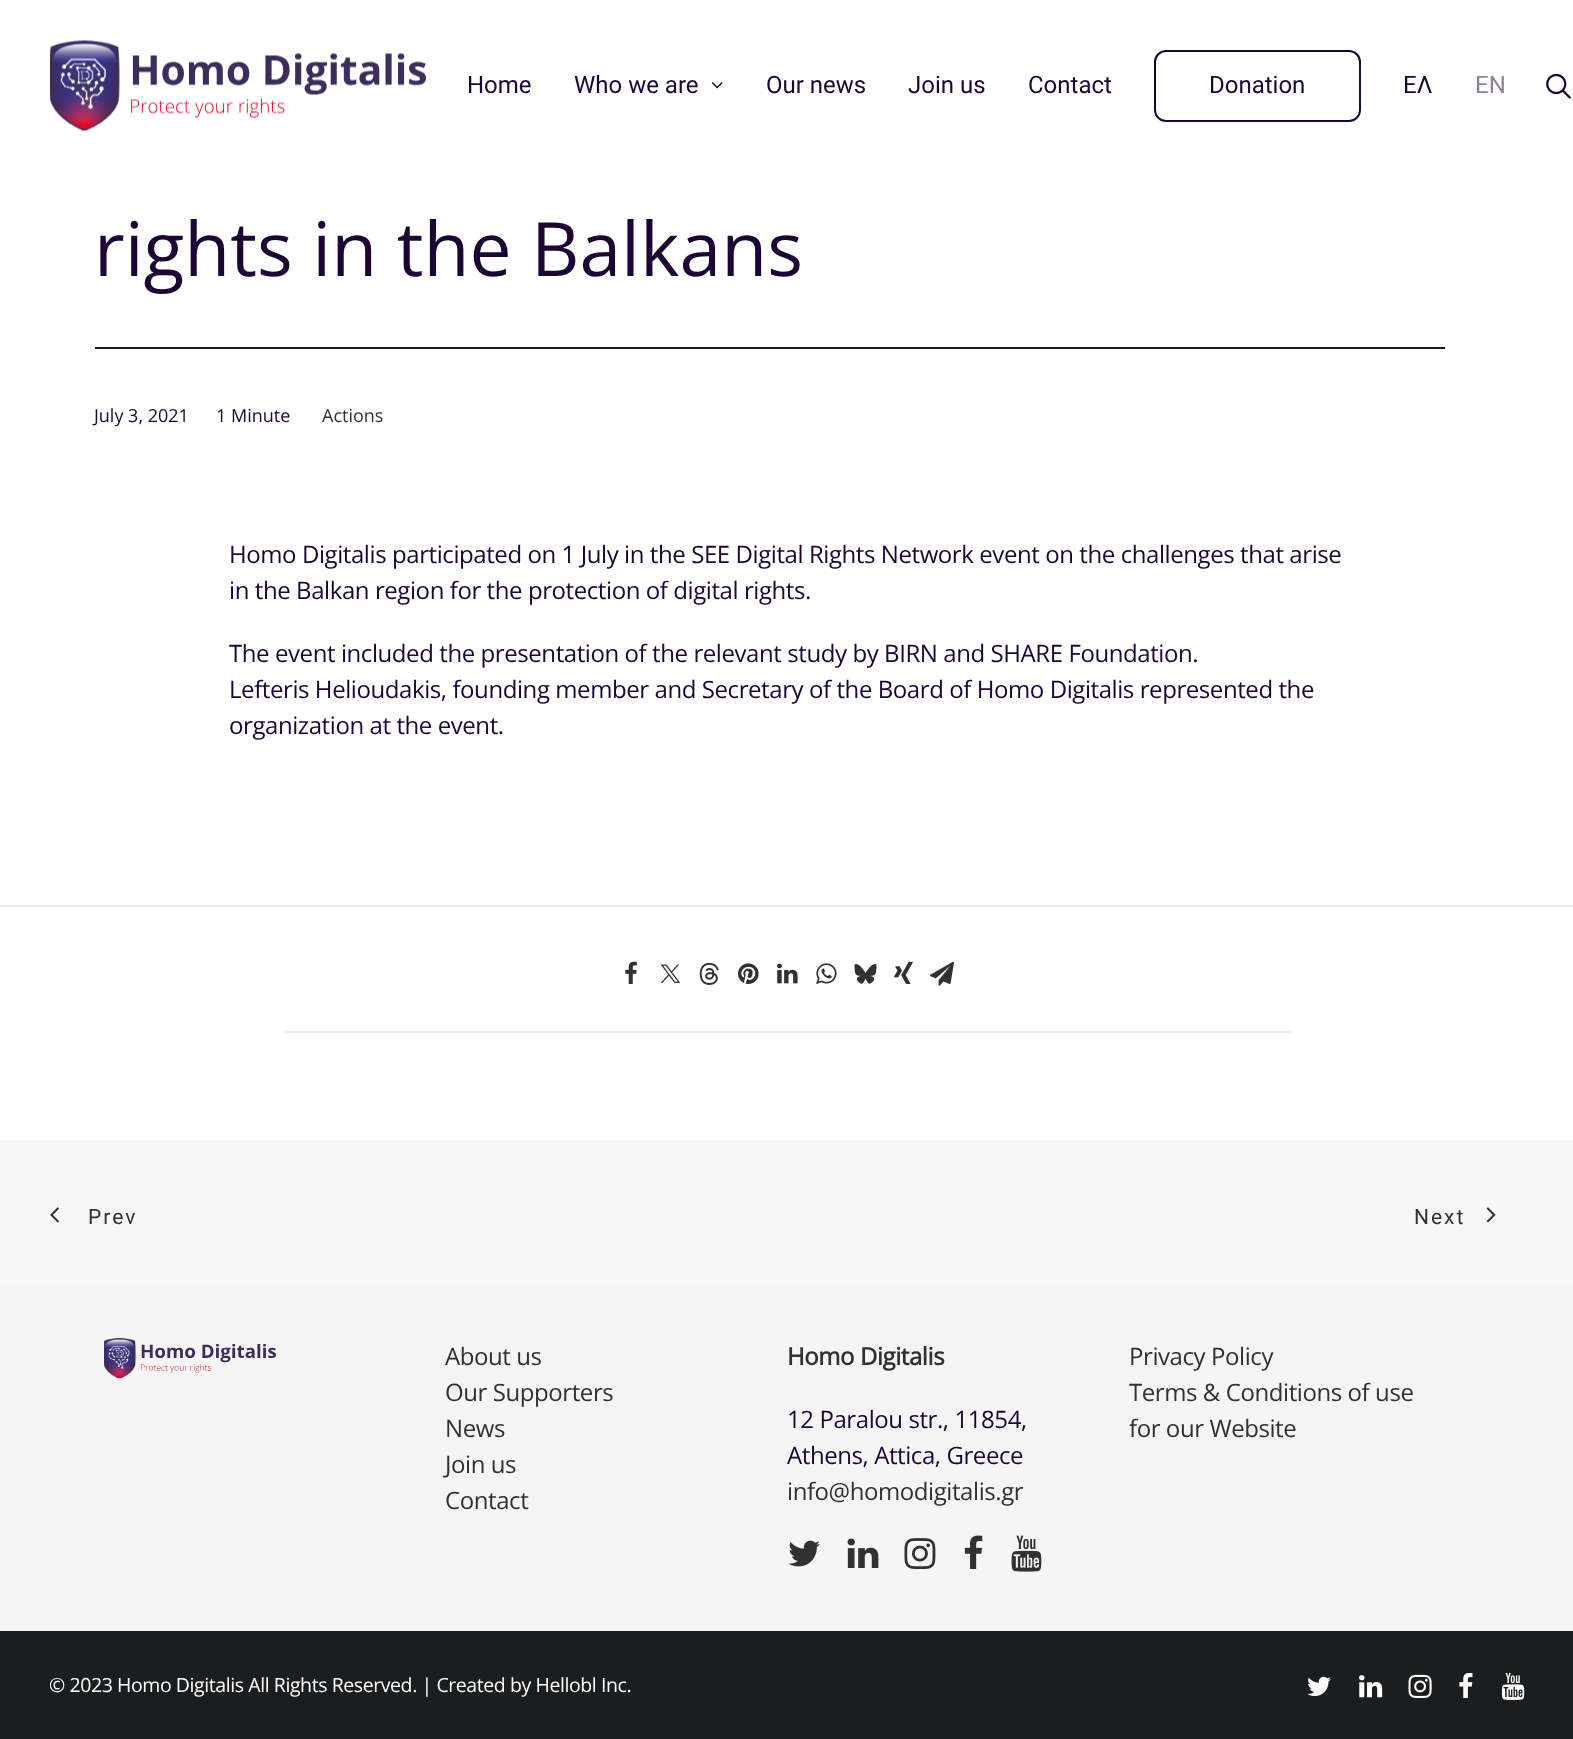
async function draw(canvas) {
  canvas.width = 1573
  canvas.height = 1739
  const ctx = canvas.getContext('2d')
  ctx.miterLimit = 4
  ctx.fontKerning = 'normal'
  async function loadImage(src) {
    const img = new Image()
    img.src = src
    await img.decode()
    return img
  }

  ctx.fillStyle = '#fff'
  ctx.fillRect(0, 0, 1573, 1739)
  ctx.drawImage(await loadImage('image0.png'), 50, 40, 376, 91)
  ctx.font = '24px Roboto'
  ctx.fillStyle = '#1c0535'
  ctx.fillText('Home', 467, 93)
  ctx.fillText('Who we are', 574, 93)
  ctx.drawImage(await loadImage('image1.png'), 711, 82, 12, 7)
  ctx.fillText('Our news', 766, 93)
  ctx.fillText('Join us', 908, 93)
  ctx.fillText('Contact', 1028, 93)
  ctx.beginPath()
  ctx.roundRect(1155, 51, 205, 70, 11)
  ctx.strokeStyle = '#1c0535'
  ctx.lineWidth = 2
  ctx.stroke()
  ctx.fillText('Donation', 1209, 93)
  ctx.fillText('ΕΛ', 1403, 93)
  ctx.fillStyle = '#8e829a'
  ctx.fillText('EN', 1475, 93)
  ctx.drawImage(await loadImage('image2.png'), 1546, 73, 25, 26)
  ctx.font = '75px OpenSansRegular'
  ctx.fillStyle = '#1c0535'
  ctx.fillText('rights in the Balkans', 94, 276)
  ctx.fillStyle = '#1b1d1f'
  ctx.fillRect(95, 347, 1350, 2)
  ctx.font = '18px OpenSansRegular'
  ctx.fillStyle = '#1c0535'
  ctx.fillText('July 3, 2021', 94, 422)
  ctx.fillText('1 Minute', 216, 422)
  ctx.fillStyle = '#303133'
  ctx.fillText('Actions', 322, 422)
  ctx.letterSpacing = '-0.42px'
  ctx.font = '24px OpenSansRegular'
  ctx.fillStyle = '#1c0535'
  ctx.fillText('Homo Digitalis participated on 1 July in the SEE Digital Rights Network event on the challenges that arise', 229, 563)
  ctx.fillText('in the Balkan region for the protection of digital rights.', 229, 599)
  ctx.fillText('The event included the presentation of the relevant study by BIRN and SHARE Foundation.', 229, 662)
  ctx.fillText('Lefteris Helioudakis, founding member and Secretary of the Board of Homo Digitalis represented the', 229, 698)
  ctx.fillText('organization at the event.', 229, 734)
  ctx.fillStyle = '#eaeaea'
  ctx.fillRect(0, 905, 1573, 2)
  ctx.fillRect(284, 1031, 1008, 2)
  ctx.drawImage(await loadImage('image3.png'), 625, 961, 12, 23)
  ctx.drawImage(await loadImage('image4.png'), 660, 964, 21, 19)
  ctx.drawImage(await loadImage('image5.png'), 699, 962, 20, 23)
  ctx.drawImage(await loadImage('image6.png'), 738, 963, 21, 21)
  ctx.drawImage(await loadImage('image7.png'), 777, 963, 21, 21)
  ctx.drawImage(await loadImage('image8.png'), 816, 963, 21, 21)
  ctx.drawImage(await loadImage('image9.png'), 854, 964, 23, 20)
  ctx.drawImage(await loadImage('image10.png'), 894, 961, 19, 23)
  ctx.drawImage(await loadImage('image11.png'), 930, 961, 24, 25)
  ctx.fillStyle = '#f7f7f7'
  ctx.fillRect(0, 1140, 1573, 144)
  ctx.drawImage(await loadImage('image12.png'), 50, 1207, 9, 16)
  ctx.letterSpacing = '2px'
  ctx.font = '21px Roboto'
  ctx.fillStyle = '#303133'
  ctx.fillText('Prev', 88, 1224)
  ctx.fillText('Next', 1414, 1224)
  ctx.drawImage(await loadImage('image13.png'), 1486, 1207, 10, 16)
  ctx.fillStyle = '#f5f5f5'
  ctx.fillRect(0, 1284, 1573, 347)
  ctx.drawImage(await loadImage('image14.png'), 104, 1338, 172, 41)
  ctx.letterSpacing = '-0.42px'
  ctx.font = '24px OpenSansRegular'
  ctx.fillStyle = '#303133'
  ctx.fillText('About us', 445, 1365)
  ctx.fillText('Our Supporters', 445, 1401)
  ctx.fillText('News', 445, 1437)
  ctx.fillText('Join us', 445, 1473)
  ctx.fillText('Contact', 445, 1509)
  ctx.font = 'bold 24px OpenSansRegular'
  ctx.fillText('Homo Digitalis', 787, 1365)
  ctx.font = '24px OpenSansRegular'
  ctx.fillStyle = '#1c0535'
  ctx.fillText('12 Paralou str., 11854,', 787, 1428)
  ctx.fillText('Athens, Attica, Greece', 787, 1464)
  ctx.fillStyle = '#303133'
  ctx.fillText('info@homodigitalis.gr', 787, 1500)
  ctx.drawImage(await loadImage('image15.png'), 788, 1540, 32, 27)
  ctx.drawImage(await loadImage('image16.png'), 847, 1538, 32, 30)
  ctx.drawImage(await loadImage('image17.png'), 904, 1538, 32, 31)
  ctx.drawImage(await loadImage('image18.png'), 964, 1535, 19, 34)
  ctx.drawImage(await loadImage('image19.png'), 1011, 1535, 31, 37)
  ctx.fillText('Privacy Policy', 1129, 1365)
  ctx.fillText('Terms & Conditions of use', 1129, 1401)
  ctx.fillText('for our Website', 1129, 1437)
  ctx.fillStyle = '#1b1d1f'
  ctx.fillRect(0, 1631, 1573, 108)
  ctx.font = '19.5px OpenSansRegular'
  ctx.fillStyle = '#fff'
  ctx.fillText('© 2023 Homo Digitalis All Rights Reserved. | Created by Hellobl Inc.', 49, 1692)
  ctx.drawImage(await loadImage('image20.png'), 1307, 1676, 24, 21)
  ctx.drawImage(await loadImage('image21.png'), 1359, 1675, 24, 23)
  ctx.drawImage(await loadImage('image22.png'), 1408, 1674, 24, 24)
  ctx.drawImage(await loadImage('image23.png'), 1459, 1672, 14, 26)
  ctx.drawImage(await loadImage('image24.png'), 1501, 1672, 24, 28)
}

draw(document.querySelector('canvas'))
